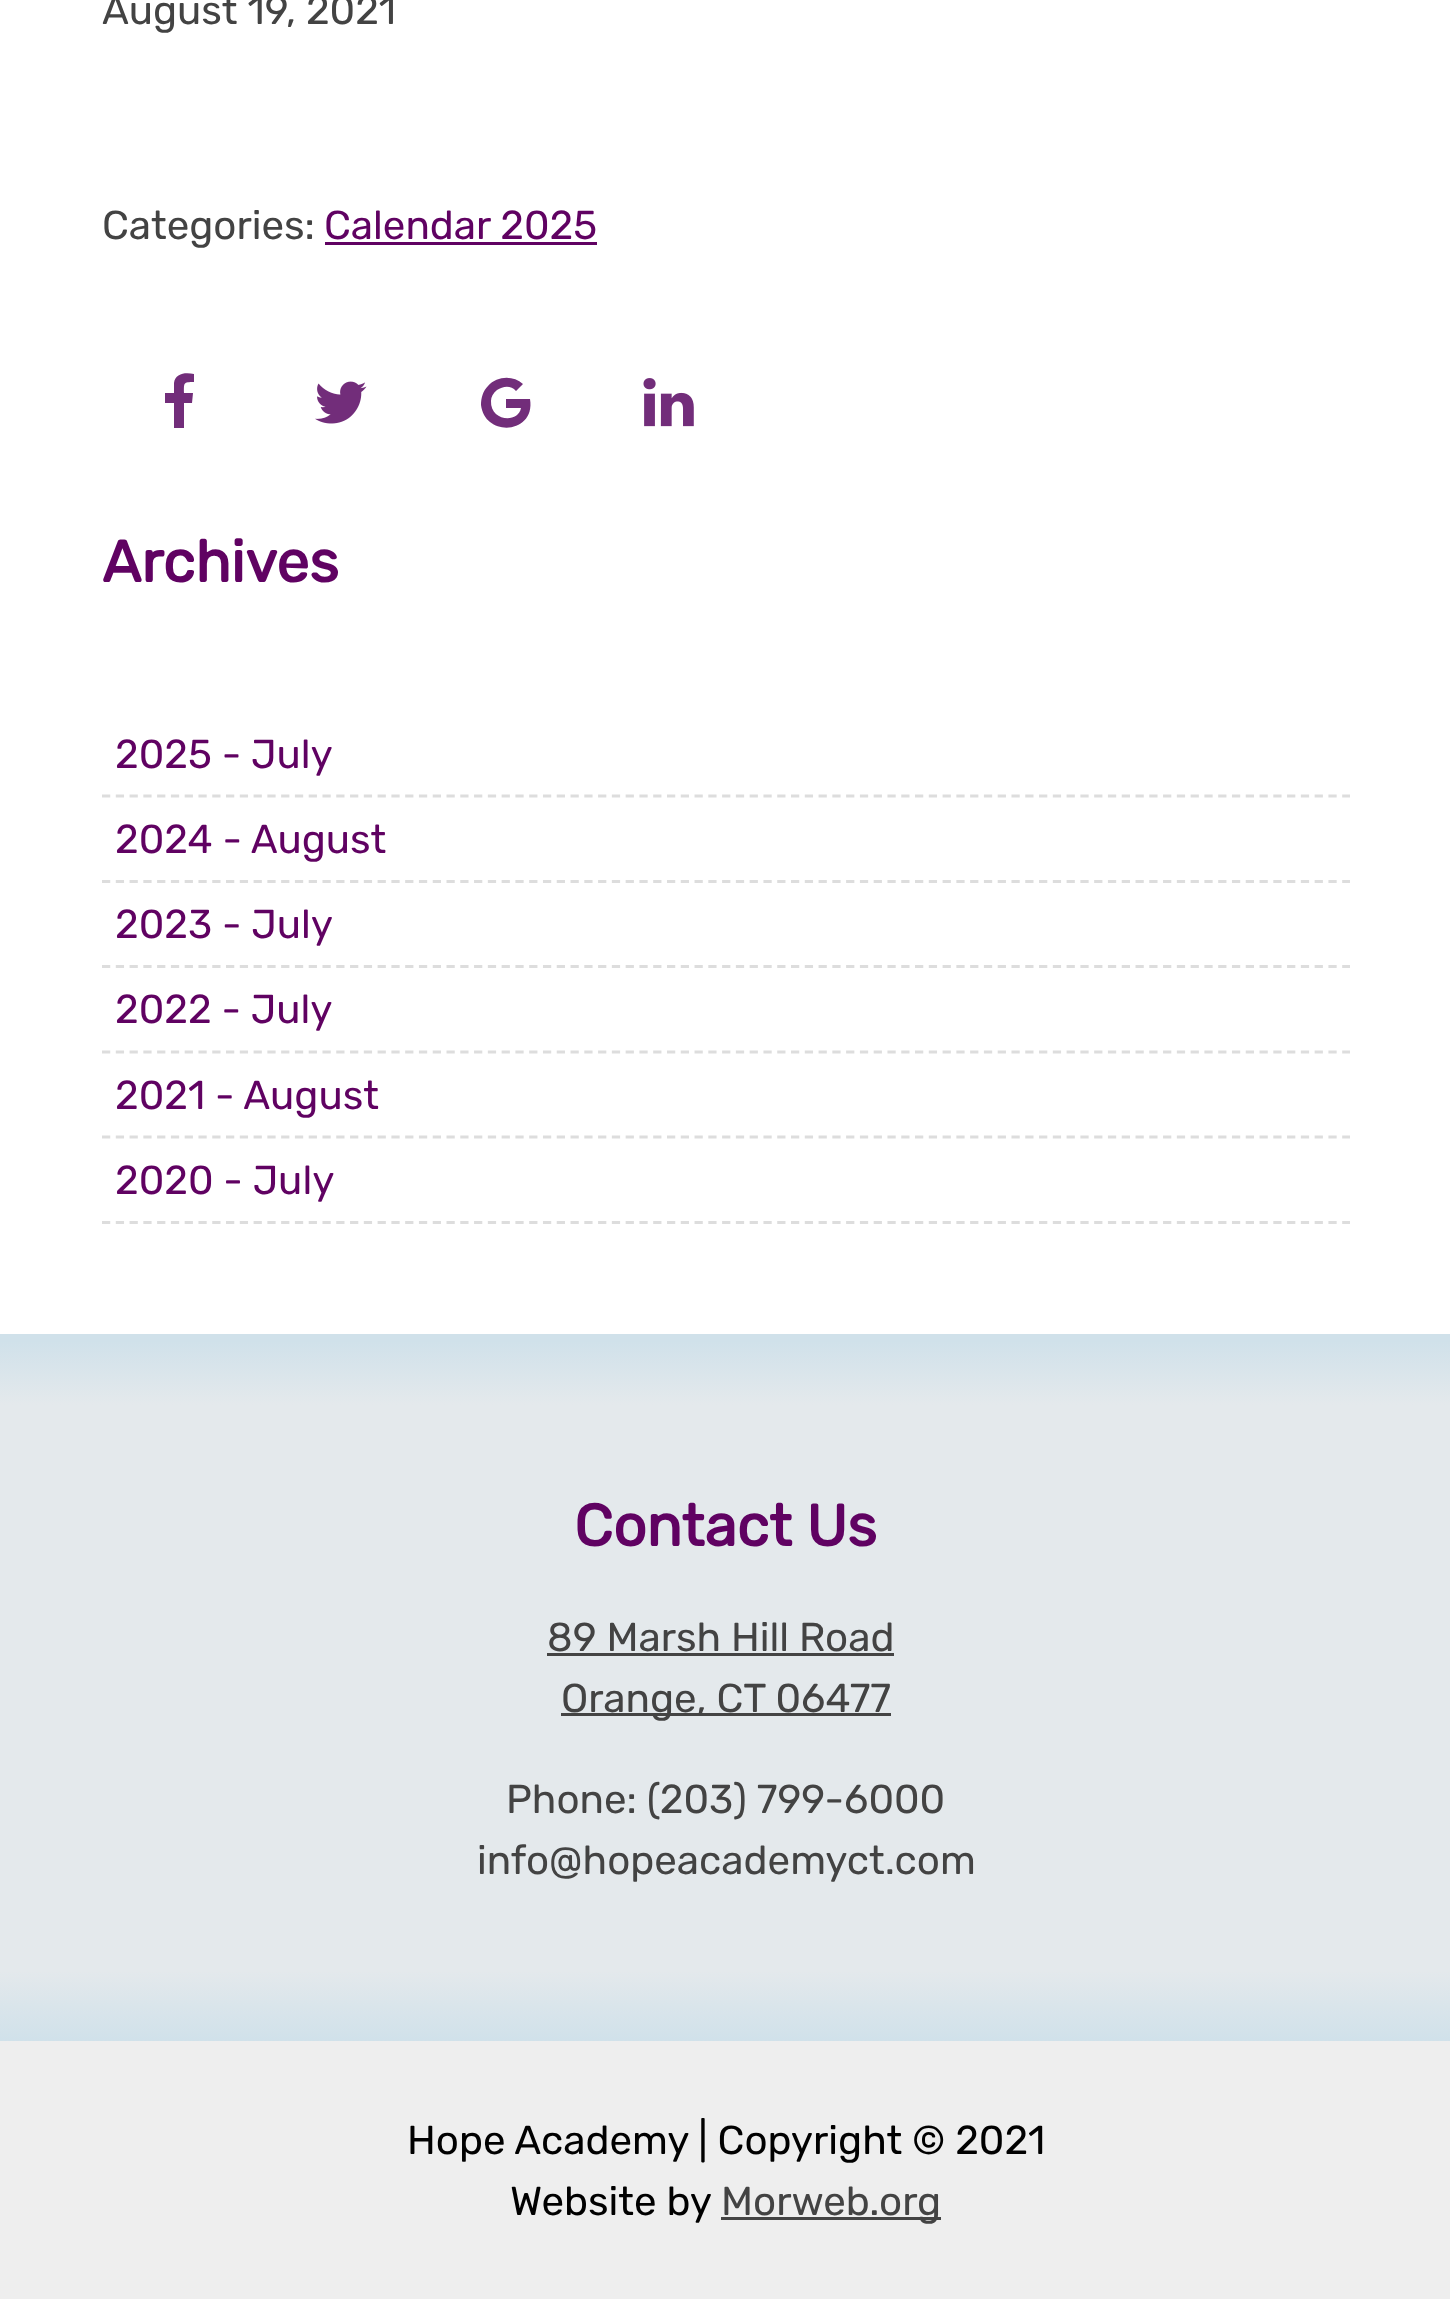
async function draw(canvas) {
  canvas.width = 1450
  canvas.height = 2299
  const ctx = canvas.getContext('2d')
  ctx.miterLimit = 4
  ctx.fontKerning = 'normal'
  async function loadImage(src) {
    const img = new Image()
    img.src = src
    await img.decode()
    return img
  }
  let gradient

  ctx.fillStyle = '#fff'
  ctx.fillRect(0, 0, 1450, 2299)
  ctx.font = '300 40.3px Rubik'
  ctx.fillStyle = '#434343'
  ctx.fillText('August 19, 2021', 102, 24)
  ctx.fillText('Categories:', 102, 239)
  ctx.fillStyle = '#600262'
  ctx.fillText('Calendar 2025', 324, 239)
  ctx.fillRect(325, 242, 272, 3)
  ctx.fillStyle = '#722d7a'
  ctx.beginPath()
  ctx.moveTo(194, 374)
  ctx.lineTo(194, 382)
  ctx.bezierCurveTo(183, 382, 184, 383, 184, 393)
  ctx.lineTo(193, 393)
  ctx.lineTo(192, 403)
  ctx.lineTo(184, 403)
  ctx.lineTo(184, 428)
  ctx.lineTo(174, 428)
  ctx.lineTo(174, 403)
  ctx.lineTo(165, 403)
  ctx.lineTo(165, 393)
  ctx.lineTo(174, 393)
  ctx.lineTo(174, 383)
  ctx.bezierCurveTo(175, 373, 186, 372, 194, 374)
  ctx.closePath()
  ctx.fill()
  ctx.drawImage(await loadImage('image0.png'), 315, 381, 52, 43)
  ctx.beginPath()
  ctx.moveTo(506, 399)
  ctx.lineTo(530, 399)
  ctx.bezierCurveTo(536, 434, 485, 438, 481, 405)
  ctx.bezierCurveTo(481, 398, 483, 391, 488, 386)
  ctx.bezierCurveTo(497, 376, 513, 375, 523, 384)
  ctx.lineTo(516, 391)
  ctx.bezierCurveTo(511, 385, 503, 386, 497, 390)
  ctx.bezierCurveTo(493, 393, 491, 397, 491, 401)
  ctx.bezierCurveTo(490, 421, 518, 424, 521, 408)
  ctx.lineTo(506, 408)
  ctx.closePath()
  ctx.fill()
  ctx.drawImage(await loadImage('image1.png'), 643, 378, 51, 49)
  ctx.font = 'bold 58.5px Rubik'
  ctx.fillStyle = '#600262'
  ctx.fillText('Archives', 102, 582)
  ctx.beginPath()
  ctx.moveTo(102, 796)
  ctx.lineTo(1350, 796)
  ctx.strokeStyle = '#ddd'
  ctx.lineWidth = 2.8
  ctx.setLineDash([8.25, 5.53])
  ctx.stroke()
  ctx.font = '300 40.3px Rubik'
  ctx.fillText('2025 - July', 115, 768)
  ctx.beginPath()
  ctx.moveTo(102, 881.5)
  ctx.lineTo(1350, 881.5)
  ctx.stroke()
  ctx.fillText('2024 - August', 115, 853)
  ctx.beginPath()
  ctx.moveTo(102, 966.5)
  ctx.lineTo(1350, 966.5)
  ctx.stroke()
  ctx.fillText('2023 - July', 115, 938)
  ctx.beginPath()
  ctx.moveTo(102, 1052)
  ctx.lineTo(1350, 1052)
  ctx.stroke()
  ctx.fillText('2022 - July', 115, 1023)
  ctx.beginPath()
  ctx.moveTo(102, 1137)
  ctx.lineTo(1350, 1137)
  ctx.stroke()
  ctx.fillText('2021 - August', 115, 1109)
  ctx.beginPath()
  ctx.moveTo(102, 1222.5)
  ctx.lineTo(1350, 1222.5)
  ctx.stroke()
  ctx.fillText('2020 - July', 115, 1194)
  gradient = ctx.createLinearGradient(726, 1334, 726, 2041)
  gradient.addColorStop(0.01, '#d0e1ea')
  gradient.addColorStop(0.1, '#e4e9ec')
  gradient.addColorStop(0.9, '#e4e9ec')
  gradient.addColorStop(1, '#d0e1ea')
  ctx.fillStyle = gradient
  ctx.fillRect(0, 1334, 1450, 707)
  ctx.font = 'bold 58.5px Rubik'
  ctx.fillStyle = '#600262'
  ctx.fillText('Contact Us', 574, 1546)
  ctx.font = '300 40.3px Rubik'
  ctx.fillStyle = '#434343'
  ctx.fillText('89 Marsh Hill Road', 547, 1651)
  ctx.fillStyle = '#444'
  ctx.fillRect(547, 1653, 347, 3)
  ctx.fillRect(561, 1713, 330, 3)
  ctx.fillStyle = '#434343'
  ctx.fillText('Orange, CT 06477', 561, 1712)
  ctx.fillText('Phone: (203) 799-6000', 506, 1813)
  ctx.fillText('info@hopeacademyct.com', 477, 1874)
  ctx.fillStyle = '#eee'
  ctx.fillRect(0, 2041, 1450, 258)
  ctx.fillStyle = '#000'
  ctx.fillText('Hope Academy | Copyright © 2021', 407, 2154)
  ctx.fillText('Website by', 510, 2215)
  ctx.fillStyle = '#444'
  ctx.fillRect(721, 2217, 220, 3)
  ctx.fillStyle = '#434343'
  ctx.fillText('Morweb.org', 721, 2215)
}

draw(document.querySelector('canvas'))
